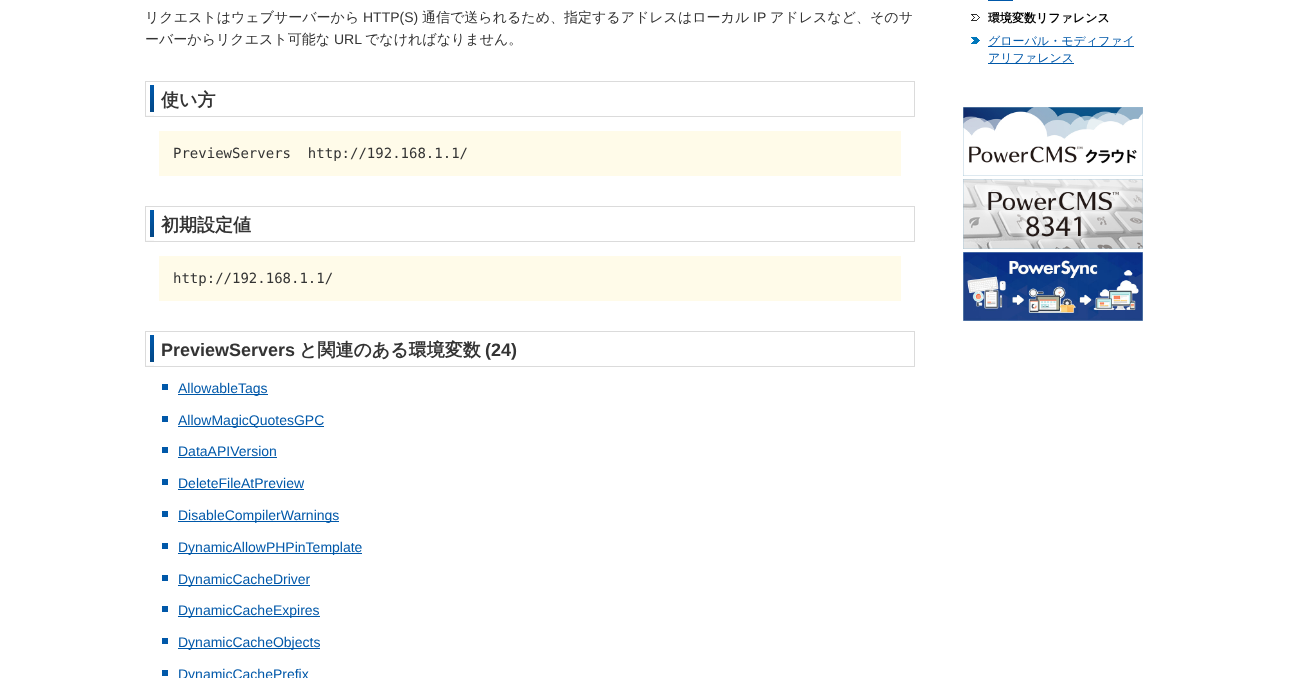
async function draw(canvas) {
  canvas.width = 1310
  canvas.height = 678
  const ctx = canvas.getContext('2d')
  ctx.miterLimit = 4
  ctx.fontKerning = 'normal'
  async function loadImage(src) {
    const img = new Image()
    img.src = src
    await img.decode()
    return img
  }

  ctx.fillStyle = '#fff'
  ctx.fillRect(0, 0, 1310, 678)
  ctx.font = '500 14px WenQuanYi Zen Hei'
  ctx.fillStyle = '#343434'
  ctx.fillText('リクエストはウェブサーバーから', 145, 22)
  ctx.font = '14px Liberation Sans'
  ctx.fillText('HTTP(S)', 363, 22)
  ctx.font = '500 14px WenQuanYi Zen Hei'
  ctx.fillText('通信で送られるため、指定するアドレスはローカル', 422, 22)
  ctx.font = '14px Liberation Sans'
  ctx.fillText('IP', 753, 22)
  ctx.font = '500 14px WenQuanYi Zen Hei'
  ctx.fillText('アドレスなど、そのサ', 770, 22)
  ctx.fillText('ーバーからリクエスト可能な', 145, 44)
  ctx.font = '14px Liberation Sans'
  ctx.fillText('URL', 334, 44)
  ctx.font = '500 14px WenQuanYi Zen Hei'
  ctx.fillText('でなければなりません。', 365, 44)
  ctx.drawImage(await loadImage('image0.png'), 146, 82, 8, 34)
  ctx.strokeStyle = '#dbdbdb'
  ctx.strokeRect(145.5, 81.5, 769, 35)
  ctx.font = 'bold 18px WenQuanYi Zen Hei'
  ctx.fillText('使い方', 161, 106)
  ctx.fillStyle = '#fffbe9'
  ctx.fillRect(159, 131, 742, 45)
  ctx.font = '14px DejaVu Sans Mono'
  ctx.fillStyle = '#343434'
  ctx.fillText('PreviewServers  http://192.168.1.1/', 173, 158)
  ctx.drawImage(await loadImage('image0.png'), 146, 207, 8, 34)
  ctx.strokeRect(145.5, 206.5, 769, 35)
  ctx.font = 'bold 18px WenQuanYi Zen Hei'
  ctx.fillText('初期設定値', 161, 231)
  ctx.fillStyle = '#fffbe9'
  ctx.fillRect(159, 256, 742, 45)
  ctx.font = '14px DejaVu Sans Mono'
  ctx.fillStyle = '#343434'
  ctx.fillText('http://192.168.1.1/', 173, 283)
  ctx.drawImage(await loadImage('image0.png'), 146, 332, 8, 34)
  ctx.strokeRect(145.5, 331.5, 769, 35)
  ctx.font = 'bold 18px Liberation Sans'
  ctx.fillText('PreviewServers', 161, 356)
  ctx.font = 'bold 18px WenQuanYi Zen Hei'
  ctx.fillText('と関連のある環境変数', 299, 356)
  ctx.font = 'bold 18px Liberation Sans'
  ctx.fillText('(24)', 485, 356)
  ctx.fillStyle = '#0058a9'
  ctx.fillRect(162, 384, 6, 6)
  ctx.fillRect(178, 394, 90, 1)
  ctx.font = '14px Liberation Sans'
  ctx.fillText('AllowableTags', 178, 393)
  ctx.fillRect(162, 416, 6, 6)
  ctx.fillRect(178, 426, 146, 1)
  ctx.fillText('AllowMagicQuotesGPC', 178, 425)
  ctx.fillRect(162, 447, 6, 6)
  ctx.fillText('DataAPIVersion', 178, 456)
  ctx.fillRect(178, 457, 99, 1)
  ctx.fillRect(162, 479, 6, 6)
  ctx.fillText('DeleteFileAtPreview', 178, 488)
  ctx.fillRect(178, 489, 126, 1)
  ctx.fillRect(162, 511, 6, 6)
  ctx.fillRect(178, 521, 161, 1)
  ctx.fillText('DisableCompilerWarnings', 178, 520)
  ctx.fillRect(162, 543, 6, 6)
  ctx.fillRect(178, 553, 184, 1)
  ctx.fillText('DynamicAllowPHPinTemplate', 178, 552)
  ctx.fillRect(162, 575, 6, 6)
  ctx.fillRect(178, 585, 132, 1)
  ctx.fillText('DynamicCacheDriver', 178, 584)
  ctx.fillRect(162, 606, 6, 6)
  ctx.fillRect(178, 616, 142, 1)
  ctx.fillText('DynamicCacheExpires', 178, 615)
  ctx.fillRect(162, 638, 6, 6)
  ctx.fillRect(178, 648, 142, 1)
  ctx.fillText('DynamicCacheObjects', 178, 647)
  ctx.fillRect(162, 670, 6, 6)
  ctx.fillText('DynamicCachePrefix', 178, 679)
  ctx.fillRect(988, 0, 25, 1)
  ctx.drawImage(await loadImage('image1.png'), 971, 14, 9, 7)
  ctx.font = 'bold 12px WenQuanYi Zen Hei'
  ctx.fillStyle = '#000'
  ctx.fillText('環境変数リファレンス', 988, 22)
  ctx.drawImage(await loadImage('image2.png'), 971, 37, 9, 7)
  ctx.fillStyle = '#0058a9'
  ctx.fillRect(988, 46, 146, 1)
  ctx.font = '500 12px WenQuanYi Zen Hei'
  ctx.fillText('グローバル・モディファイ', 988, 45)
  ctx.fillRect(988, 63, 86, 1)
  ctx.fillText('アリファレンス', 988, 62)
  ctx.drawImage(await loadImage('image3.png'), 963, 107, 180, 69)
  ctx.drawImage(await loadImage('image4.png'), 963, 179, 180, 70)
  ctx.drawImage(await loadImage('image5.png'), 963, 252, 180, 69)
}

draw(document.querySelector('canvas'))
